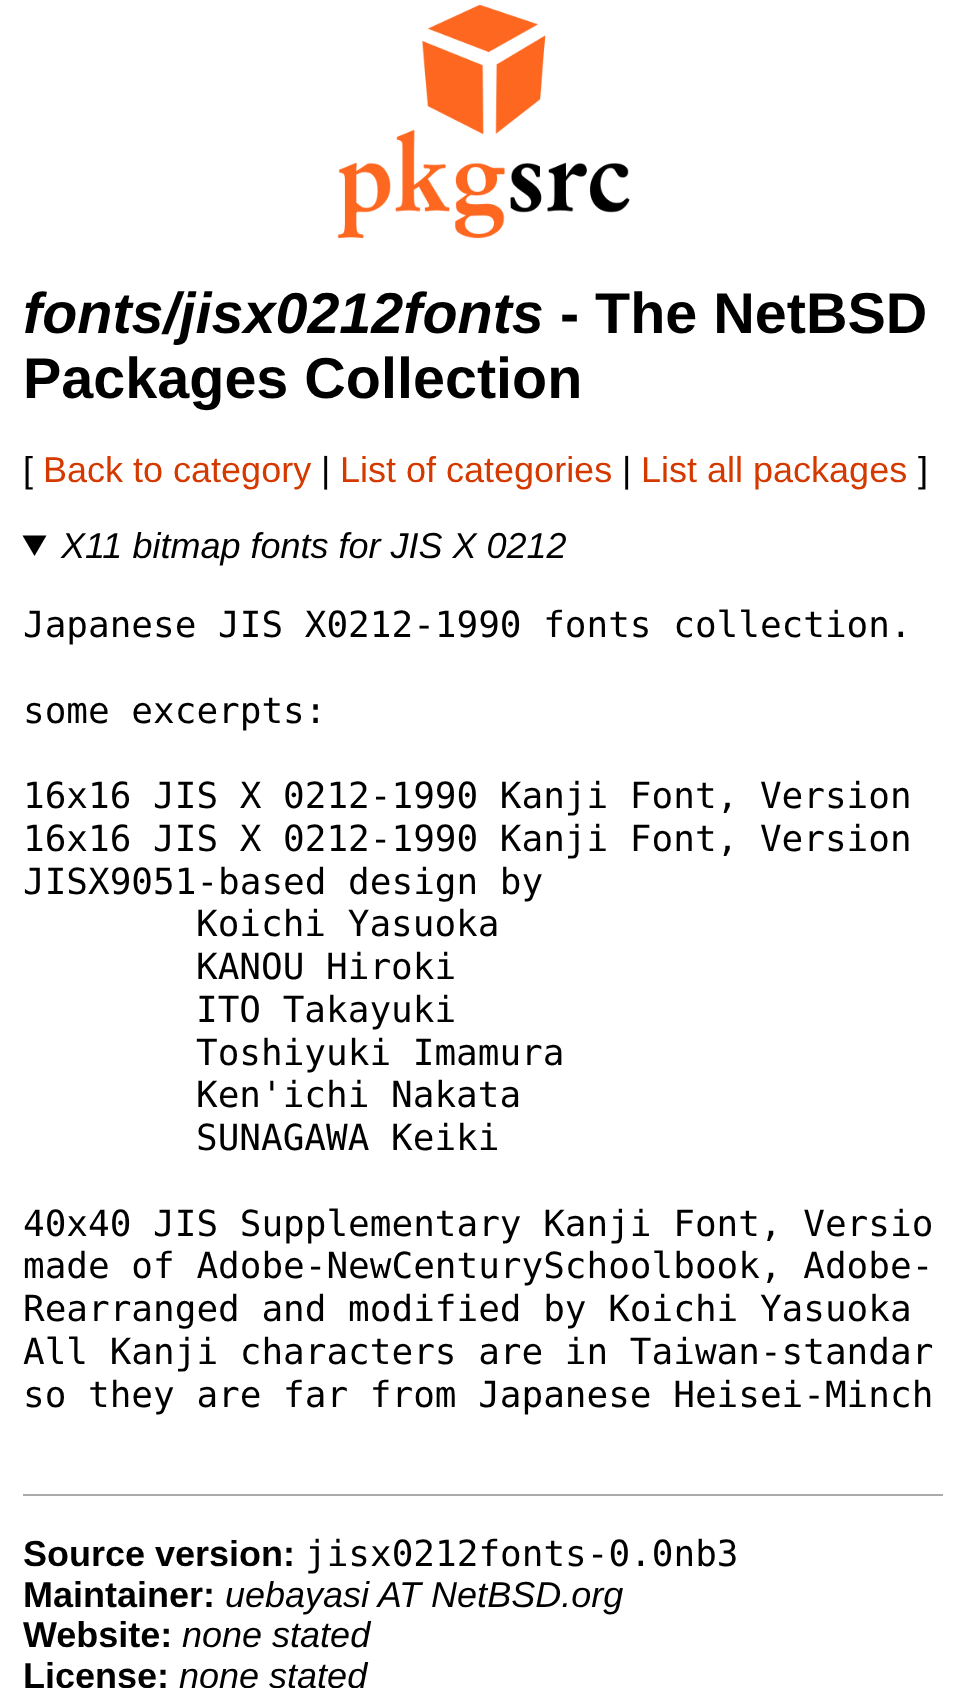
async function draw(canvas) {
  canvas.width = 965
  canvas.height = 1688
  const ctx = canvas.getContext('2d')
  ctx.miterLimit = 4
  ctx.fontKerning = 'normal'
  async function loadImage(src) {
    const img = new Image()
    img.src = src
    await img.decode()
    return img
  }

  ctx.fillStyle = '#fff'
  ctx.fillRect(0, 0, 965, 1688)
  ctx.drawImage(await loadImage('image0.png'), 337, 5, 293, 234)
  ctx.font = 'italic bold 57.5px Liberation Sans'
  ctx.fillStyle = '#000'
  ctx.fillText('fonts/jisx0212fonts', 23, 333)
  ctx.font = 'bold 57.5px Liberation Sans'
  ctx.fillText('- The NetBSD', 560, 333)
  ctx.fillText('Packages Collection', 23, 398)
  ctx.font = '36px Liberation Sans'
  ctx.fillText('[', 23, 482)
  ctx.fillStyle = '#d43900'
  ctx.fillText('Back to category', 43, 482)
  ctx.fillStyle = '#000'
  ctx.fillText('|', 321, 482)
  ctx.fillStyle = '#d43900'
  ctx.fillText('List of categories', 340, 482)
  ctx.fillStyle = '#000'
  ctx.fillText('|', 622, 482)
  ctx.fillStyle = '#d43900'
  ctx.fillText('List all packages', 641, 482)
  ctx.fillStyle = '#000'
  ctx.fillText(']', 918, 482)
  ctx.beginPath()
  ctx.moveTo(22.5, 535.5)
  ctx.lineTo(46.5, 535.5)
  ctx.lineTo(34.5, 556)
  ctx.closePath()
  ctx.fill()
  ctx.font = 'italic 36px Liberation Sans'
  ctx.fillText('X11 bitmap fonts for JIS X 0212', 61, 558)
  ctx.font = '36px DejaVu Sans Mono'
  ctx.fillText('Japanese JIS X0212-1990 fonts collection.', 23, 637)
  ctx.fillText('some excerpts:', 23, 723)
  ctx.fillText('16x16 JIS X 0212-1990 Kanji Font, Version', 23, 808)
  ctx.fillText('16x16 JIS X 0212-1990 Kanji Font, Version', 23, 851)
  ctx.fillText('JISX9051-based design by', 23, 894)
  ctx.fillText('Koichi Yasuoka', 196, 936)
  ctx.fillText('KANOU Hiroki', 196, 979)
  ctx.fillText('ITO Takayuki', 196, 1022)
  ctx.fillText('Toshiyuki Imamura', 196, 1065)
  ctx.fillText('Ken\'ichi Nakata', 196, 1107)
  ctx.fillText('SUNAGAWA Keiki', 196, 1150)
  ctx.fillText('40x40 JIS Supplementary Kanji Font, Versio', 23, 1236)
  ctx.fillText('made of Adobe-NewCenturySchoolbook, Adobe-', 23, 1278)
  ctx.fillText('Rearranged and modified by Koichi Yasuoka', 23, 1321)
  ctx.fillText('All Kanji characters are in Taiwan-standar', 23, 1364)
  ctx.fillText('so they are far from Japanese Heisei-Minch', 23, 1407)
  ctx.fillStyle = '#aaa'
  ctx.fillRect(23, 1494, 920, 2)
  ctx.font = 'bold 36px Liberation Sans'
  ctx.fillStyle = '#000'
  ctx.fillText('Source version:', 23, 1566)
  ctx.font = '36px DejaVu Sans Mono'
  ctx.fillText('jisx0212fonts-0.0nb3', 305, 1566)
  ctx.font = 'bold 36px Liberation Sans'
  ctx.fillText('Maintainer:', 23, 1607)
  ctx.font = 'italic 36px Liberation Sans'
  ctx.fillText('uebayasi AT NetBSD.org', 225, 1607)
  ctx.font = 'bold 36px Liberation Sans'
  ctx.fillText('Website:', 23, 1647)
  ctx.font = 'italic 36px Liberation Sans'
  ctx.fillText('none stated', 182, 1647)
  ctx.font = 'bold 36px Liberation Sans'
  ctx.fillText('License:', 23, 1688)
  ctx.font = 'italic 36px Liberation Sans'
  ctx.fillText('none stated', 179, 1688)
}

draw(document.querySelector('canvas'))
